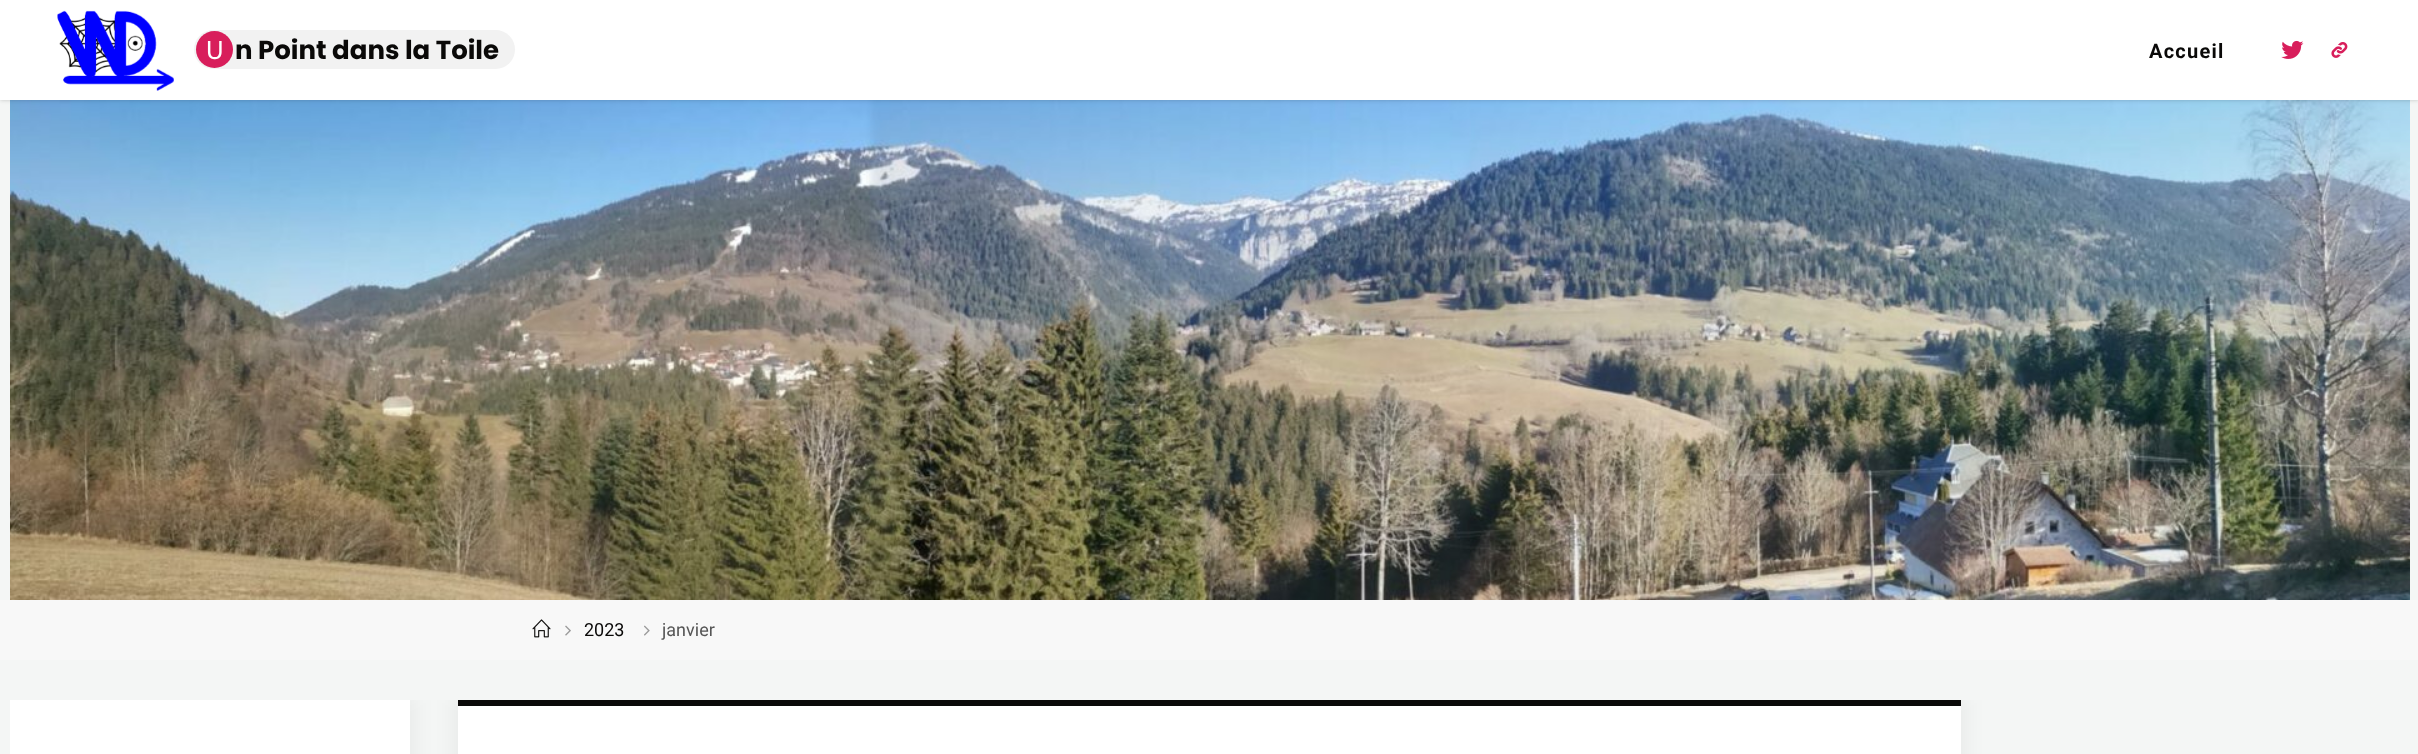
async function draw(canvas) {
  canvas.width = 2418
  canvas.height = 754
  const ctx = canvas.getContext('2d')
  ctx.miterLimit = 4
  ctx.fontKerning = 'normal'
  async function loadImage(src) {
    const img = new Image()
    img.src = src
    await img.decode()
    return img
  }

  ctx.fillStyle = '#f4f6f5'
  ctx.fillRect(0, 0, 2418, 754)
  ctx.drawImage(await loadImage('image3.png'), 10, 100, 2400, 500)
  ctx.fillStyle = '#00000033'
  ctx.filter = 'blur(2px)'
  ctx.beginPath()
  ctx.rect(0, 0, 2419, 100)
  ctx.fill()
  ctx.filter = 'none'
  ctx.fillStyle = '#fff'
  ctx.fillRect(0, 0, 2418, 100)
  ctx.drawImage(await loadImage('image0.png'), 57, 10, 117, 81)
  ctx.fillStyle = '#f2f2f2'
  ctx.beginPath()
  ctx.roundRect(194, 30, 321, 39, 19.5)
  ctx.fill()
  ctx.fillStyle = '#d81e5b'
  ctx.beginPath()
  ctx.arc(214.5, 49.5, 18.5, 0, 2 * Math.PI)
  ctx.fill()
  ctx.font = '26px Poppins'
  ctx.fillStyle = '#fff'
  ctx.fillText('U', 206, 59)
  ctx.font = 'bold 26px Poppins'
  ctx.fillStyle = '#0a0908'
  ctx.fillText('n Point dans la Toile', 235, 59)
  ctx.letterSpacing = '1.25px'
  ctx.font = 'bold 20px Roboto'
  ctx.fillText('Accueil', 2149, 58)
  ctx.drawImage(await loadImage('image1.png'), 2281, 40, 23, 19)
  ctx.drawImage(await loadImage('image2.png'), 2331, 42, 17, 16)
  ctx.fillStyle = '#f8f8f8'
  ctx.fillRect(0, 600, 2418, 60)
  ctx.drawImage(await loadImage('image4.png'), 532, 619, 19, 19)
  ctx.drawImage(await loadImage('image5.png'), 565, 625, 6, 11)
  ctx.letterSpacing = '0px'
  ctx.font = '18px Roboto'
  ctx.fillStyle = '#0a0908'
  ctx.fillText('2023', 584, 636)
  ctx.drawImage(await loadImage('image6.png'), 644, 625, 6, 11)
  ctx.fillStyle = '#555'
  ctx.fillText('janvier', 662, 636)
  ctx.save()
  ctx.beginPath()
  ctx.rect(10, 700, 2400, 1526)
  ctx.clip()
  ctx.fillStyle = '#0000000d'
  ctx.filter = 'blur(10px)'
  ctx.beginPath()
  ctx.rect(6, 696, 408, 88)
  ctx.fill()
  ctx.filter = 'none'
  ctx.restore()
  ctx.fillStyle = '#fff'
  ctx.fillRect(10, 700, 400, 54)
  ctx.save()
  ctx.beginPath()
  ctx.rect(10, 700, 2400, 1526)
  ctx.clip()
  ctx.fillStyle = '#0000000d'
  ctx.filter = 'blur(10px)'
  ctx.beginPath()
  ctx.rect(454, 696, 1511, 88)
  ctx.fill()
  ctx.filter = 'none'
  ctx.restore()
  ctx.fillRect(458, 706, 1503, 48)
  ctx.fillStyle = '#0a0908'
  ctx.fillRect(458, 700, 1503, 6)
}

draw(document.querySelector('canvas'))
